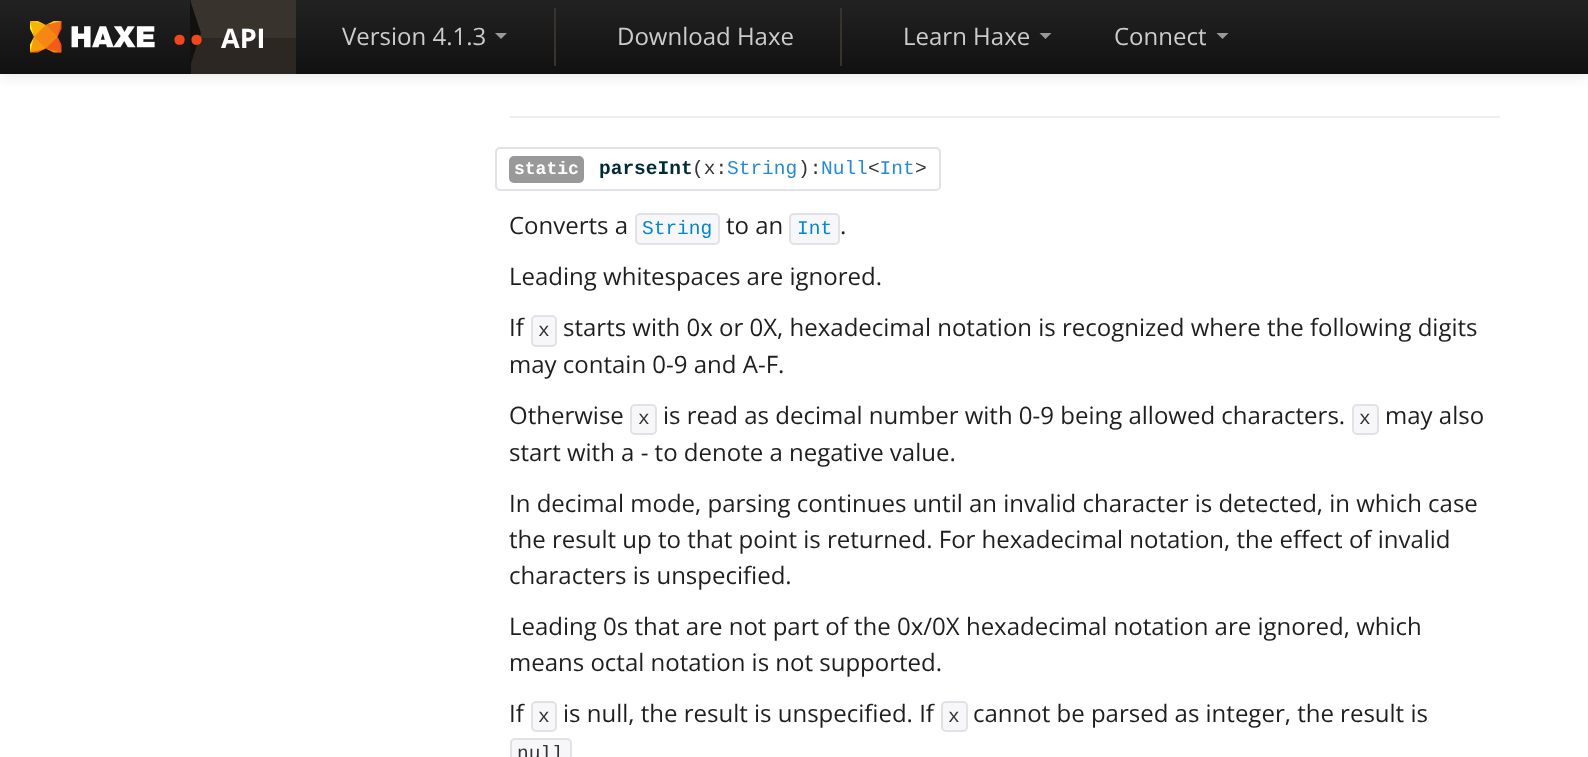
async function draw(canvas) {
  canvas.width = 1588
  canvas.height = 757
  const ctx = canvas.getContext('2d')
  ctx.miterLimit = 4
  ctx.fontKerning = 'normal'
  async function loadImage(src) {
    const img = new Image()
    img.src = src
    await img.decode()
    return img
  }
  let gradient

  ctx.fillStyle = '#fff'
  ctx.fillRect(0, 0, 1588, 757)
  ctx.fillStyle = '#0000001a'
  ctx.filter = 'blur(7.5px)'
  ctx.beginPath()
  ctx.rect(0, 2, 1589, 73)
  ctx.fill()
  ctx.filter = 'none'
  gradient = ctx.createLinearGradient(794, 0, 794, 74)
  gradient.addColorStop(0, '#222')
  gradient.addColorStop(1, '#111')
  ctx.fillStyle = gradient
  ctx.fillRect(0, 0, 1588, 74)
  ctx.drawImage(await loadImage('image0.png'), 30, 21, 125, 32)
  ctx.fillStyle = '#39332d'
  ctx.fillRect(191, 0, 105, 38)
  ctx.fillStyle = '#2c2722'
  ctx.fillRect(191, 38, 105, 36)
  ctx.fillStyle = '#13110f'
  ctx.beginPath()
  ctx.moveTo(190, 66)
  ctx.lineTo(190, 0)
  ctx.lineTo(201, 33)
  ctx.closePath()
  ctx.fill()
  ctx.font = 'bold 60px Open Sans'
  ctx.fillStyle = '#f1471d'
  ctx.fillText('..', 171, 44)
  ctx.font = 'bold 27px Open Sans'
  ctx.fillStyle = '#fff'
  ctx.fillText('API', 221, 48)
  ctx.font = '24px Open Sans'
  ctx.fillStyle = '#ccc'
  ctx.fillText('Version 4.1.3', 342, 45)
  ctx.fillStyle = '#999'
  ctx.beginPath()
  ctx.moveTo(495, 33)
  ctx.lineTo(507, 33)
  ctx.lineTo(501, 39)
  ctx.closePath()
  ctx.fill()
  ctx.fillStyle = '#39332d'
  ctx.fillRect(554, 8, 2, 58)
  ctx.fillStyle = '#ccc'
  ctx.fillText('Download Haxe', 617, 45)
  ctx.fillStyle = '#39332d'
  ctx.fillRect(840, 8, 2, 58)
  ctx.fillStyle = '#ccc'
  ctx.fillText('Learn Haxe', 903, 45)
  ctx.fillStyle = '#999'
  ctx.beginPath()
  ctx.moveTo(1039.5, 33)
  ctx.lineTo(1051.5, 33)
  ctx.lineTo(1045.5, 39)
  ctx.closePath()
  ctx.fill()
  ctx.fillStyle = '#ccc'
  ctx.fillText('Connect', 1114, 45)
  ctx.fillStyle = '#999'
  ctx.beginPath()
  ctx.moveTo(1216.5, 33)
  ctx.lineTo(1228.5, 33)
  ctx.lineTo(1222.5, 39)
  ctx.closePath()
  ctx.fill()
  ctx.fillStyle = '#eee'
  ctx.fillRect(510, 116, 990, 2)
  ctx.beginPath()
  ctx.roundRect(496, 148, 444, 42, 4)
  ctx.strokeStyle = '#e1e1e8'
  ctx.lineWidth = 2
  ctx.stroke()
  ctx.fillStyle = '#999'
  ctx.beginPath()
  ctx.roundRect(509, 156, 75, 27, 5)
  ctx.fill()
  ctx.font = 'bold 18px Liberation Mono'
  ctx.fillStyle = '#fff'
  ctx.fillText('static', 514, 174)
  ctx.font = 'bold 19.5px Liberation Mono'
  ctx.fillStyle = '#002b36'
  ctx.fillText('parseInt', 599, 174)
  ctx.font = '19.5px Liberation Mono'
  ctx.fillStyle = '#333'
  ctx.fillText('(x:', 692, 174)
  ctx.fillStyle = '#268bd2'
  ctx.fillText('String', 727, 174)
  ctx.fillStyle = '#333'
  ctx.fillText('):', 798, 174)
  ctx.fillStyle = '#268bd2'
  ctx.fillText('Null Int', 821, 174)
  ctx.fillStyle = '#333'
  ctx.fillText('<', 868, 174)
  ctx.fillText('>', 915, 174)
  ctx.font = '24px Open Sans'
  ctx.fillStyle = '#1e1e1e'
  ctx.fillText('Converts a', 509, 234)
  ctx.fillStyle = '#f7f7f9'
  ctx.beginPath()
  ctx.roundRect(636, 214, 83, 30, 4)
  ctx.fill()
  ctx.stroke()
  ctx.font = '19.5px Liberation Mono'
  ctx.fillStyle = '#08c'
  ctx.fillText('String', 642, 234)
  ctx.font = '24px Open Sans'
  ctx.fillStyle = '#1e1e1e'
  ctx.fillText('to an', 726, 234)
  ctx.fillStyle = '#f7f7f9'
  ctx.beginPath()
  ctx.roundRect(790, 214, 49, 30, 4)
  ctx.fill()
  ctx.stroke()
  ctx.font = '19.5px Liberation Mono'
  ctx.fillStyle = '#08c'
  ctx.fillText('Int', 797, 234)
  ctx.font = '24px Open Sans'
  ctx.fillStyle = '#1e1e1e'
  ctx.fillText('.', 840, 234)
  ctx.fillText('Leading whitespaces are ignored.', 509, 285)
  ctx.fillText('If', 509, 336)
  ctx.fillStyle = '#f7f7f9'
  ctx.beginPath()
  ctx.roundRect(532, 316, 24, 30, 4)
  ctx.fill()
  ctx.stroke()
  ctx.font = '19.5px Liberation Mono'
  ctx.fillStyle = '#333'
  ctx.fillText('x', 538, 336)
  ctx.font = '24px Open Sans'
  ctx.fillStyle = '#1e1e1e'
  ctx.fillText('starts with 0x or 0X, hexadecimal notation is recognized where the following digits', 563, 336)
  ctx.fillText('may contain 0-9 and A-F.', 509, 373)
  ctx.fillText('Otherwise', 509, 424)
  ctx.fillStyle = '#f7f7f9'
  ctx.beginPath()
  ctx.roundRect(631, 405, 25, 29, 4)
  ctx.fill()
  ctx.stroke()
  ctx.font = '19.5px Liberation Mono'
  ctx.fillStyle = '#333'
  ctx.fillText('x', 638, 424)
  ctx.font = '24px Open Sans'
  ctx.fillStyle = '#1e1e1e'
  ctx.fillText('is read as decimal number with 0-9 being allowed characters.', 663, 424)
  ctx.fillStyle = '#f7f7f9'
  ctx.beginPath()
  ctx.roundRect(1353, 405, 25, 29, 4)
  ctx.fill()
  ctx.stroke()
  ctx.font = '19.5px Liberation Mono'
  ctx.fillStyle = '#333'
  ctx.fillText('x', 1359, 424)
  ctx.font = '24px Open Sans'
  ctx.fillStyle = '#1e1e1e'
  ctx.fillText('may also', 1385, 424)
  ctx.fillText('start with a - to denote a negative value.', 509, 461)
  ctx.fillText('In decimal mode, parsing continues until an invalid character is detected, in which case', 509, 512)
  ctx.fillText('the result up to that point is returned. For hexadecimal notation, the effect of invalid', 509, 548)
  ctx.fillText('characters is unspecified.', 509, 584)
  ctx.fillText('Leading 0s that are not part of the 0x/0X hexadecimal notation are ignored, which', 509, 635)
  ctx.fillText('means octal notation is not supported.', 509, 671)
  ctx.fillText('If', 509, 722)
  ctx.fillStyle = '#f7f7f9'
  ctx.beginPath()
  ctx.roundRect(532, 702, 24, 29, 4)
  ctx.fill()
  ctx.stroke()
  ctx.font = '19.5px Liberation Mono'
  ctx.fillStyle = '#333'
  ctx.fillText('x', 538, 722)
  ctx.font = '24px Open Sans'
  ctx.fillStyle = '#1e1e1e'
  ctx.fillText('is null, the result is unspecified. If', 563, 722)
  ctx.fillStyle = '#f7f7f9'
  ctx.beginPath()
  ctx.roundRect(942, 702, 25, 29, 4)
  ctx.fill()
  ctx.stroke()
  ctx.font = '19.5px Liberation Mono'
  ctx.fillStyle = '#333'
  ctx.fillText('x', 948, 722)
  ctx.font = '24px Open Sans'
  ctx.fillStyle = '#1e1e1e'
  ctx.fillText('cannot be parsed as integer, the result is', 973, 722)
  ctx.fillStyle = '#f7f7f9'
  ctx.beginPath()
  ctx.roundRect(511, 739, 60, 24, 4)
  ctx.fill()
  ctx.stroke()
  ctx.font = '19.5px Liberation Mono'
  ctx.fillStyle = '#333'
  ctx.fillText('null', 517, 759)
}

draw(document.querySelector('canvas'))
